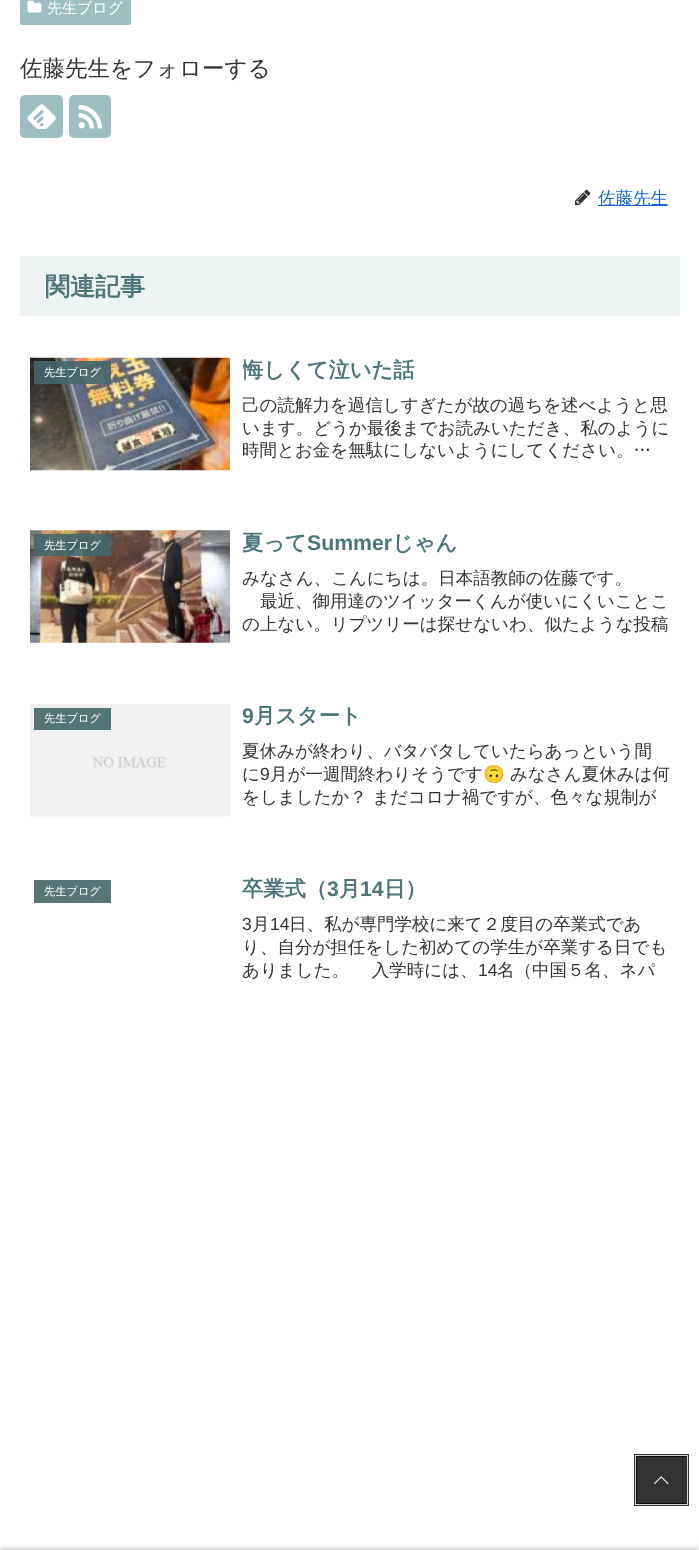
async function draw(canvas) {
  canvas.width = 699
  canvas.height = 1550
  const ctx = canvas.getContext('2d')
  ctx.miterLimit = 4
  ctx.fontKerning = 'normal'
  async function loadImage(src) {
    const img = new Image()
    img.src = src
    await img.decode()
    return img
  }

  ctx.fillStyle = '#fff'
  ctx.fillRect(0, 0, 699, 1550)
  ctx.fillStyle = '#9ebfc2'
  ctx.beginPath()
  ctx.roundRect(20, -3, 111, 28, 2.5)
  ctx.fill()
  ctx.drawImage(await loadImage('image0.png'), 27, 0, 15, 13)
  ctx.font = '500 15px WenQuanYi Zen Hei'
  ctx.fillStyle = '#fff'
  ctx.fillText('先生ブログ', 47, 13)
  ctx.font = '500 22.5px WenQuanYi Zen Hei'
  ctx.fillStyle = '#333'
  ctx.fillText('佐藤先生をフォローする', 20, 76)
  ctx.fillStyle = '#9ebfc2'
  ctx.beginPath()
  ctx.roundRect(20, 95, 43, 43, 5)
  ctx.fill()
  ctx.drawImage(await loadImage('image1.png'), 27, 104, 29, 26)
  ctx.beginPath()
  ctx.roundRect(69, 95, 42, 43, 5)
  ctx.fill()
  ctx.drawImage(await loadImage('image2.png'), 78, 104, 25, 25)
  ctx.drawImage(await loadImage('image3.png'), 575, 189, 16, 17)
  ctx.fillStyle = '#1967d2'
  ctx.fillRect(598, 205, 70, 1)
  ctx.font = '500 17.5px WenQuanYi Zen Hei'
  ctx.fillText('佐藤先生', 598, 204)
  ctx.fillStyle = '#edf3f3'
  ctx.fillRect(20, 256, 660, 60)
  ctx.font = 'bold 25px WenQuanYi Zen Hei'
  ctx.fillStyle = '#4d767b'
  ctx.fillText('関連記事', 45, 295)
  ctx.drawImage(await loadImage('image4.png'), 30, 357, 200, 114)
  ctx.fillStyle = '#43676be6'
  ctx.fillRect(34, 361, 77, 23)
  ctx.font = '500 11.25px WenQuanYi Zen Hei'
  ctx.fillStyle = '#fff'
  ctx.fillText('先生ブログ', 44, 376)
  ctx.save()
  ctx.beginPath()
  ctx.rect(243, 354, 427, 34)
  ctx.clip()
  ctx.font = 'bold 21.25px WenQuanYi Zen Hei'
  ctx.fillStyle = '#4d767b'
  ctx.fillText('悔しくて泣いた話', 242, 377)
  ctx.restore()
  ctx.font = '500 17.5px WenQuanYi Zen Hei'
  ctx.fillStyle = '#333'
  ctx.fillText('己の読解力を過信しすぎたが故の過ちを述べようと思', 242, 411)
  ctx.fillText('います。どうか最後までお読みいただき、私のように', 242, 434)
  ctx.fillText('時間とお金を無駄にしないようにしてください。…', 242, 456)
  ctx.drawImage(await loadImage('image5.png'), 30, 530, 200, 113)
  ctx.fillStyle = '#43676be6'
  ctx.fillRect(34, 534, 77, 22)
  ctx.font = '500 11.25px WenQuanYi Zen Hei'
  ctx.fillStyle = '#fff'
  ctx.fillText('先生ブログ', 44, 549)
  ctx.font = 'bold 21.25px WenQuanYi Zen Hei'
  ctx.fillStyle = '#4d767b'
  ctx.fillText('夏って', 242, 550)
  ctx.font = 'bold 21.25px Liberation Sans'
  ctx.fillText('Summer', 307, 550)
  ctx.font = 'bold 21.25px WenQuanYi Zen Hei'
  ctx.fillText('じゃん', 392, 550)
  ctx.font = '500 17.5px WenQuanYi Zen Hei'
  ctx.fillStyle = '#333'
  ctx.fillText('みなさん、こんにちは。日本語教師の佐藤です。', 242, 584)
  ctx.fillText('最近、御用達のツイッターくんが使いにくいことこ', 260, 607)
  ctx.fillText('の上ない。リプツリーは探せないわ、似たような投稿', 242, 630)
  ctx.drawImage(await loadImage('image6.png'), 30, 704, 200, 113)
  ctx.fillStyle = '#547578'
  ctx.fillRect(34, 708, 77, 22)
  ctx.font = '500 11.25px WenQuanYi Zen Hei'
  ctx.fillStyle = '#fff'
  ctx.fillText('先生ブログ', 44, 722)
  ctx.font = 'bold 21.25px Liberation Sans'
  ctx.fillStyle = '#4d767b'
  ctx.fillText('9', 242, 723)
  ctx.font = 'bold 21.25px WenQuanYi Zen Hei'
  ctx.fillText('月スタート', 254, 723)
  ctx.font = '500 17.5px WenQuanYi Zen Hei'
  ctx.fillStyle = '#333'
  ctx.fillText('夏休みが終わり、バタバタしていたらあっという間', 242, 757)
  ctx.fillText('に', 242, 780)
  ctx.font = '17.5px Liberation Sans'
  ctx.fillText('9', 260, 780)
  ctx.font = '500 17.5px WenQuanYi Zen Hei'
  ctx.fillText('月が一週間終わりそうです', 270, 780)
  ctx.font = '17.5px Noto Color Emoji'
  ctx.fillText('🙃', 483, 780)
  ctx.font = '500 17.5px WenQuanYi Zen Hei'
  ctx.fillText('みなさん夏休みは何', 510, 780)
  ctx.fillText('をしましたか？ まだコロナ禍ですが、色々な規制が', 242, 803)
  ctx.fillStyle = '#56767a'
  ctx.fillRect(34, 880, 77, 23)
  ctx.font = '500 11.25px WenQuanYi Zen Hei'
  ctx.fillStyle = '#fff'
  ctx.fillText('先生ブログ', 44, 895)
  ctx.font = 'bold 21.25px WenQuanYi Zen Hei'
  ctx.fillStyle = '#4d767b'
  ctx.fillText('卒業式（', 242, 896)
  ctx.font = 'bold 21.25px Liberation Sans'
  ctx.fillText('3', 327, 896)
  ctx.font = 'bold 21.25px WenQuanYi Zen Hei'
  ctx.fillText('月', 339, 896)
  ctx.font = 'bold 21.25px Liberation Sans'
  ctx.fillText('14', 360, 896)
  ctx.font = 'bold 21.25px WenQuanYi Zen Hei'
  ctx.fillText('日）', 384, 896)
  ctx.font = '17.5px Liberation Sans'
  ctx.fillStyle = '#333'
  ctx.fillText('3', 242, 930)
  ctx.font = '500 17.5px WenQuanYi Zen Hei'
  ctx.fillText('月', 252, 930)
  ctx.font = '17.5px Liberation Sans'
  ctx.fillText('14', 270, 930)
  ctx.font = '500 17.5px WenQuanYi Zen Hei'
  ctx.fillText('日、私が専門学校に来て２度目の卒業式であ', 289, 930)
  ctx.fillText('り、自分が担任をした初めての学生が卒業する日でも', 242, 953)
  ctx.fillText('ありました。 　入学時には、', 242, 976)
  ctx.font = '17.5px Liberation Sans'
  ctx.fillText('14', 478, 976)
  ctx.font = '500 17.5px WenQuanYi Zen Hei'
  ctx.fillText('名（中国５名、ネパ', 497, 976)
  ctx.strokeStyle = '#333'
  ctx.lineWidth = 3
  ctx.strokeRect(635.5, 1455.5, 52, 49)
  ctx.strokeStyle = '#d6d6d6'
  ctx.lineWidth = 1
  ctx.strokeRect(635.5, 1455.5, 52, 49)
  ctx.fillStyle = '#000000cc'
  ctx.fillRect(636, 1456, 50, 48)
  ctx.drawImage(await loadImage('image7.png'), 654, 1476, 15, 9)
  ctx.fillStyle = '#a9a9a9'
  ctx.filter = 'blur(3px)'
  ctx.beginPath()
  ctx.rect(0, 1550, 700, 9)
  ctx.fill()
  ctx.filter = 'none'
}

draw(document.querySelector('canvas'))
